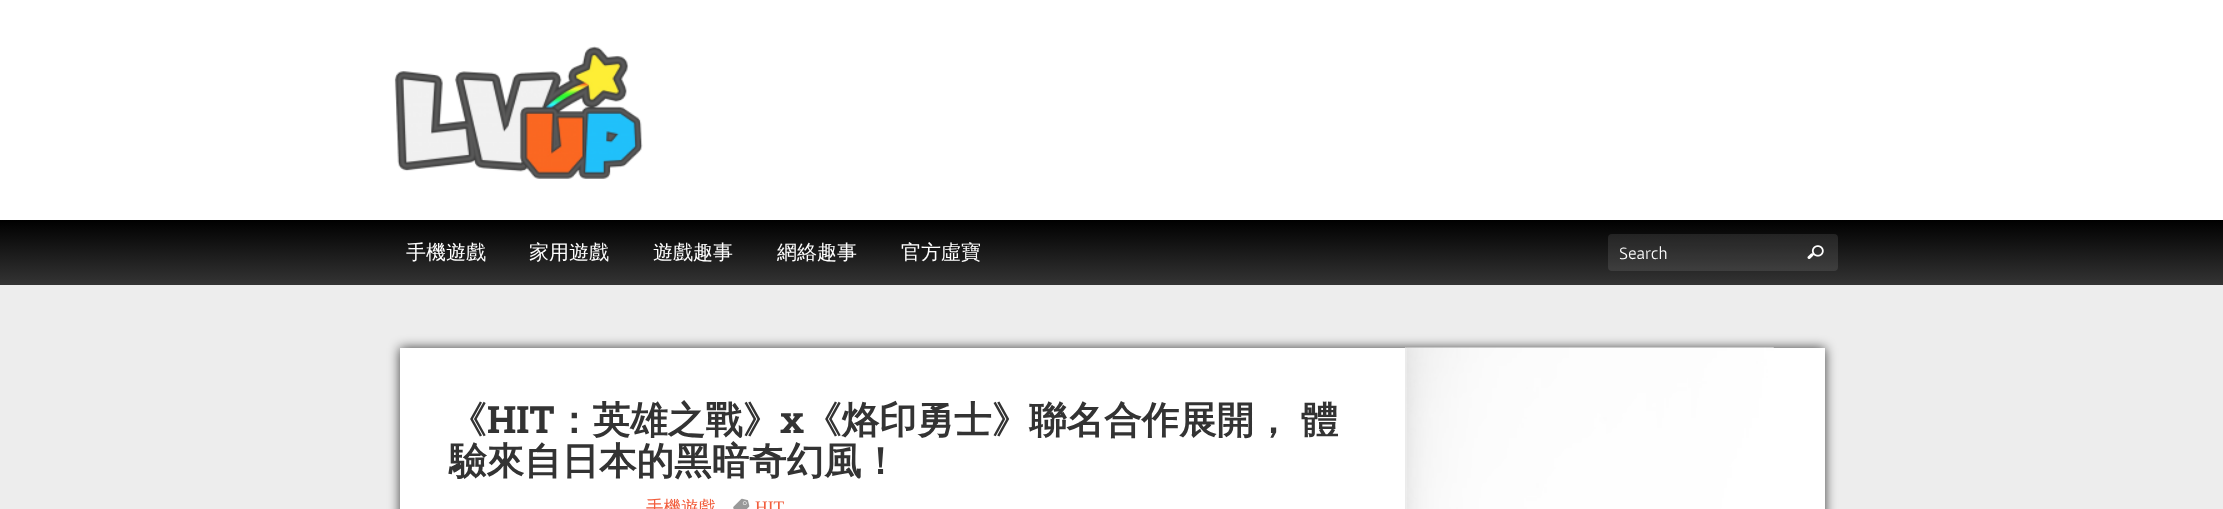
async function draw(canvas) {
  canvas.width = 2223
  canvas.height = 509
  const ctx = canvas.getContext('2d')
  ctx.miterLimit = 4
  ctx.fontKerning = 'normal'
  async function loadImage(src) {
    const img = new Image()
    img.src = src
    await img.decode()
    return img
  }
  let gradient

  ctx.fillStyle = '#ededed'
  ctx.fillRect(0, 0, 2223, 509)
  ctx.fillStyle = '#fff'
  ctx.fillRect(0, 0, 2223, 220)
  ctx.drawImage(await loadImage('image0.png'), 394, 46, 249, 133)
  gradient = ctx.createLinearGradient(1112, 220, 1112, 285)
  gradient.addColorStop(0, '#000')
  gradient.addColorStop(1, '#343434')
  ctx.fillStyle = gradient
  ctx.fillRect(0, 220, 2223, 65)
  ctx.font = '500 20px WenQuanYi Zen Hei'
  ctx.fillStyle = '#fff'
  ctx.fillText('手機遊戲', 406, 259)
  ctx.fillText('家用遊戲', 529, 259)
  ctx.fillText('遊戲趣事', 653, 259)
  ctx.fillText('網絡趣事', 777, 259)
  ctx.fillText('官方虛寶', 901, 259)
  ctx.fillStyle = '#ffffff1a'
  ctx.beginPath()
  ctx.roundRect(1608, 234, 187, 37, [4, 0, 0, 4])
  ctx.fill()
  ctx.font = '17.5px Gafata'
  ctx.fillStyle = '#fff'
  ctx.fillText('Search', 1619, 259)
  ctx.fillStyle = '#ffffff1a'
  ctx.beginPath()
  ctx.roundRect(1795, 234, 43, 37, [0, 4, 4, 0])
  ctx.fill()
  ctx.drawImage(await loadImage('image1.png'), 1807, 245, 17, 14)
  ctx.fillStyle = '#000000bf'
  ctx.filter = 'blur(6px)'
  ctx.beginPath()
  ctx.rect(400, 348, 1425, 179)
  ctx.fill()
  ctx.filter = 'none'
  ctx.fillStyle = '#fff'
  ctx.fillRect(400, 348, 1425, 161)
  ctx.drawImage(await loadImage('image2.png'), 1405, 347, 2, 162)
  ctx.font = 'bold 37.5px WenQuanYi Zen Hei'
  ctx.fillStyle = '#333'
  ctx.fillText('《', 449, 433)
  ctx.font = 'bold 37.5px Roboto Slab'
  ctx.fillText('HIT', 487, 433)
  ctx.font = 'bold 37.5px WenQuanYi Zen Hei'
  ctx.fillText('：英雄之戰》', 555, 433)
  ctx.font = 'bold 37.5px Roboto Slab'
  ctx.fillText('x', 780, 433)
  ctx.wordSpacing = '-2px'
  ctx.font = 'bold 37.5px WenQuanYi Zen Hei'
  ctx.fillText('《烙印勇士》聯名合作展開， 體', 804, 433)
  ctx.wordSpacing = '0px'
  ctx.fillText('驗來自日本的黑暗奇幻風！', 449, 474)
  ctx.font = '500 17.5px WenQuanYi Zen Hei'
  ctx.fillStyle = '#f25d3c'
  ctx.fillText('手機遊戲', 646, 513)
  ctx.drawImage(await loadImage('image3.png'), 733, 498, 17, 11)
  ctx.font = '17.5px Liberation Serif'
  ctx.fillText('HIT', 755, 513)
  ctx.drawImage(await loadImage('image4.png'), 1406, 347, 368, 162)
}

draw(document.querySelector('canvas'))
